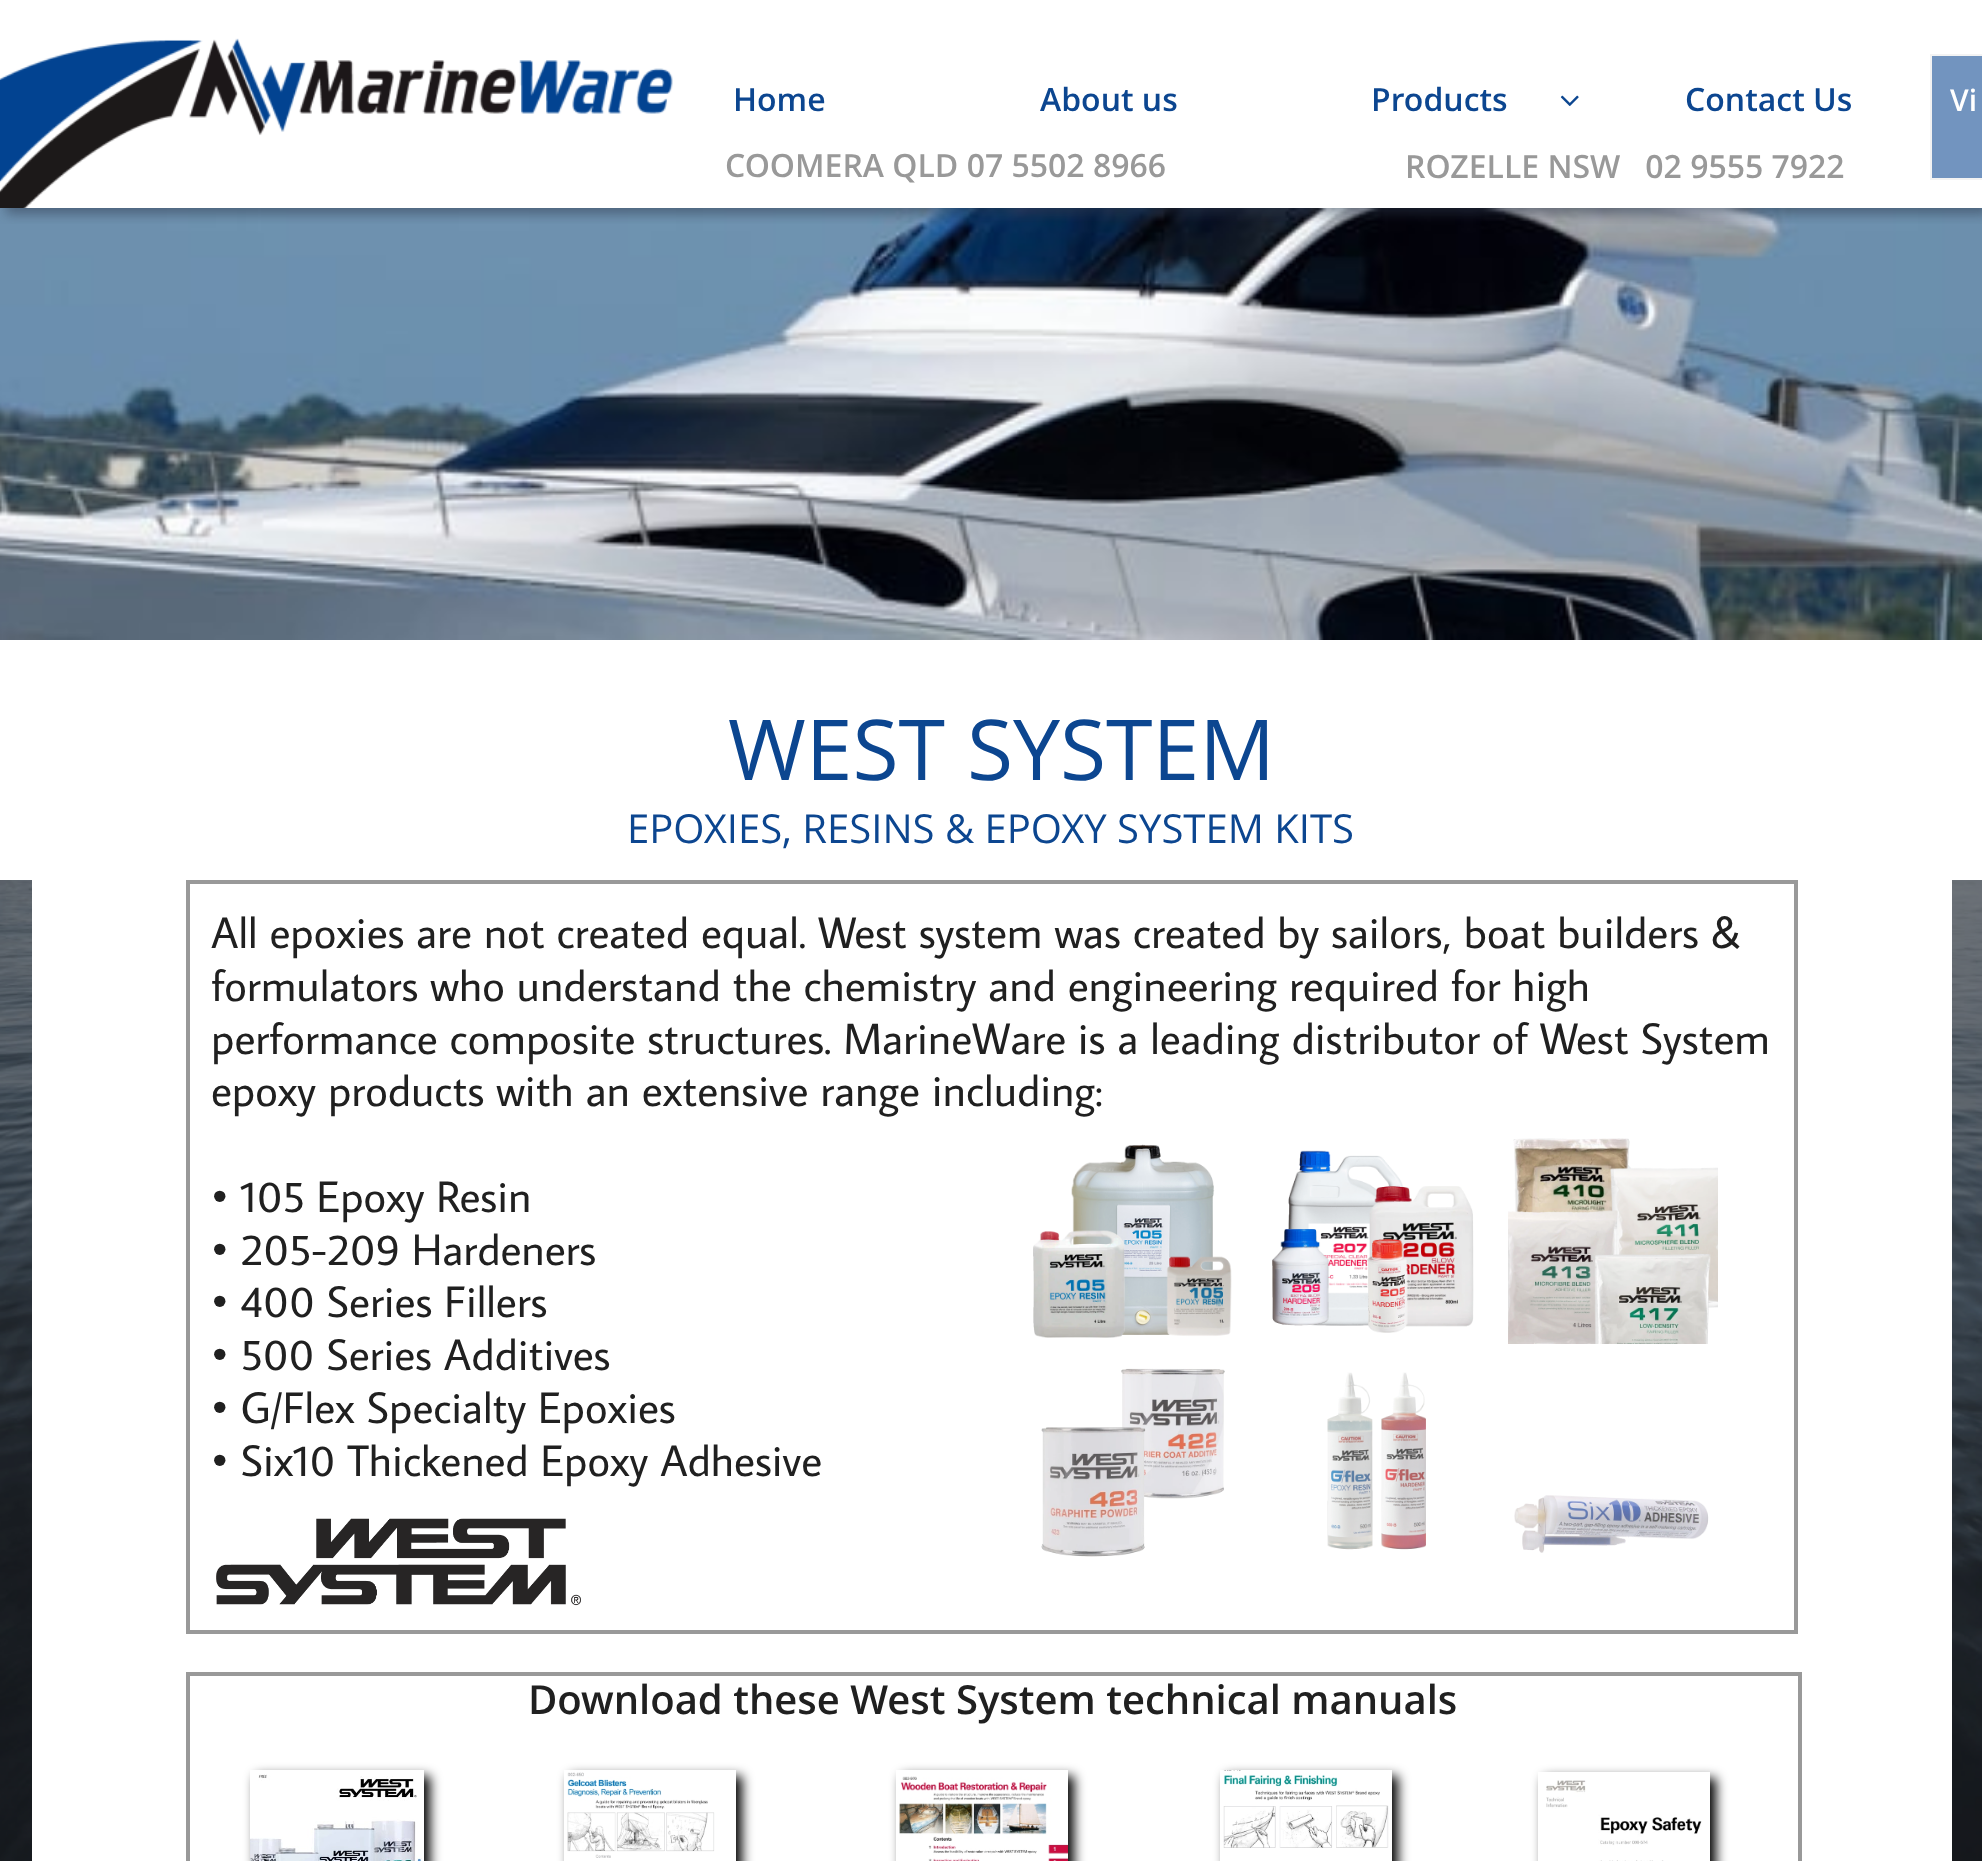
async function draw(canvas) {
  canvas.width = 1982
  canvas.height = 1861
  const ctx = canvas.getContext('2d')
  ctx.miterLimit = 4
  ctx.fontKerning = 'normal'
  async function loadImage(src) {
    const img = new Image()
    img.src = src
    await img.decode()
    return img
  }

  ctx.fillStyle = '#fff'
  ctx.fillRect(0, 0, 1982, 1861)
  ctx.drawImage(await loadImage('image2.png'), 0, 208, 1982, 432)
  ctx.save()
  ctx.beginPath()
  ctx.rect(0, 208, 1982, 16)
  ctx.clip()
  ctx.fillStyle = '#2b364a80'
  ctx.filter = 'blur(6px)'
  ctx.beginPath()
  ctx.rect(6, 6, 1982, 208)
  ctx.fill()
  ctx.filter = 'none'
  ctx.restore()
  ctx.drawImage(await loadImage('image0.png'), 0, 38, 673, 170)
  ctx.font = '600 32px Open Sans'
  ctx.fillStyle = '#0c4690'
  ctx.fillText('Home', 733, 111)
  ctx.fillText('About us', 1040, 111)
  ctx.fillText('Products', 1371, 111)
  ctx.drawImage(await loadImage('image1.png'), 1560, 95, 19, 11)
  ctx.fillText('Contact Us', 1685, 111)
  ctx.fillStyle = '#7294bf'
  ctx.beginPath()
  ctx.rect(1931, 55, 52, 124)
  ctx.fill()
  ctx.strokeStyle = '#f3f3f3'
  ctx.lineWidth = 2
  ctx.stroke()
  ctx.font = '600 30px Open Sans'
  ctx.fillStyle = '#fff'
  ctx.fillText('Vi', 1950, 111)
  ctx.font = '600 32px Open Sans'
  ctx.fillStyle = '#999'
  ctx.fillText('COOMERA QLD 07 5502 8966', 725, 177)
  ctx.fillText('ROZELLE NSW   02 9555 7922', 1405, 178)
  ctx.font = '84px Open Sans'
  ctx.fillStyle = '#0c4690'
  ctx.fillText('WEST SYSTEM', 728, 780)
  ctx.font = '40px Open Sans'
  ctx.fillText('EPOXIES, RESINS & EPOXY SYSTEM KITS', 627, 843)
  ctx.drawImage(await loadImage('image15.png'), 0, 880, 1982, 981)
  ctx.fillStyle = '#20202078'
  ctx.fillRect(0, 880, 1982, 981)
  ctx.fillStyle = '#2b364a2e'
  ctx.fillRect(0, 880, 1982, 981)
  ctx.fillStyle = '#fff'
  ctx.fillRect(32, 880, 1920, 981)
  ctx.strokeStyle = '#999'
  ctx.lineWidth = 4
  ctx.strokeRect(188, 882, 1608, 750)
  ctx.font = '44px Average Sans'
  ctx.fillStyle = '#202020'
  ctx.fillText('All epoxies are not created equal. West system was created by sailors, boat builders &', 211, 948)
  ctx.fillText('formulators who understand the chemistry and engineering required for high', 211, 1001)
  ctx.fillText('performance composite structures. MarineWare is a leading distributor of West System', 211, 1054)
  ctx.fillText('epoxy products with an extensive range including:', 211, 1106)
  ctx.fillText('• 105 Epoxy Resin', 211, 1212)
  ctx.fillText('• 205-209 Hardeners', 211, 1265)
  ctx.fillText('• 400 Series Fillers', 211, 1317)
  ctx.fillText('• 500 Series Additives', 211, 1370)
  ctx.fillText('• G/Flex Specialty Epoxies', 211, 1423)
  ctx.fillText('• Six10 Thickened Epoxy Adhesive', 211, 1476)
  ctx.drawImage(await loadImage('image3.png'), 1033, 1144, 199, 194)
  ctx.drawImage(await loadImage('image4.png'), 1272, 1150, 202, 183)
  ctx.drawImage(await loadImage('image5.png'), 1508, 1138, 210, 206)
  ctx.drawImage(await loadImage('image6.png'), 216, 1518, 365, 88)
  ctx.drawImage(await loadImage('image7.png'), 1041, 1368, 184, 189)
  ctx.drawImage(await loadImage('image8.png'), 1327, 1372, 99, 178)
  ctx.drawImage(await loadImage('image9.png'), 1514, 1495, 195, 58)
  ctx.strokeRect(188, 1674, 1612, 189)
  ctx.font = '600 40px Open Sans'
  ctx.fillText('Download these West System technical manuals', 528, 1714)
  ctx.drawImage(await loadImage('image10.png'), 250, 1774, 172, 87)
  ctx.save()
  ctx.beginPath()
  ctx.moveTo(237, 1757)
  ctx.lineTo(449, 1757)
  ctx.lineTo(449, 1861)
  ctx.lineTo(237, 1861)
  ctx.closePath()
  ctx.moveTo(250, 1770)
  ctx.lineTo(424, 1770)
  ctx.lineTo(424, 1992)
  ctx.lineTo(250, 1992)
  ctx.closePath()
  ctx.clip('evenodd')
  ctx.fillStyle = '#000'
  ctx.filter = 'blur(6px)'
  ctx.beginPath()
  ctx.rect(256, 1776, 174, 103)
  ctx.fill()
  ctx.filter = 'none'
  ctx.restore()
  ctx.drawImage(await loadImage('image11.png'), 567, 1772, 148, 86)
  ctx.save()
  ctx.beginPath()
  ctx.moveTo(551, 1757)
  ctx.lineTo(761, 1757)
  ctx.lineTo(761, 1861)
  ctx.lineTo(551, 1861)
  ctx.closePath()
  ctx.moveTo(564, 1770)
  ctx.lineTo(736, 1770)
  ctx.lineTo(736, 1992)
  ctx.lineTo(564, 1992)
  ctx.closePath()
  ctx.clip('evenodd')
  ctx.fillStyle = '#000'
  ctx.filter = 'blur(6px)'
  ctx.beginPath()
  ctx.rect(570, 1776, 172, 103)
  ctx.fill()
  ctx.filter = 'none'
  ctx.restore()
  ctx.drawImage(await loadImage('image12.png'), 899, 1776, 169, 85)
  ctx.save()
  ctx.beginPath()
  ctx.moveTo(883, 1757)
  ctx.lineTo(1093, 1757)
  ctx.lineTo(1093, 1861)
  ctx.lineTo(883, 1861)
  ctx.closePath()
  ctx.moveTo(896, 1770)
  ctx.lineTo(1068, 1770)
  ctx.lineTo(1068, 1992)
  ctx.lineTo(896, 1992)
  ctx.closePath()
  ctx.clip('evenodd')
  ctx.fillStyle = '#000'
  ctx.filter = 'blur(6px)'
  ctx.beginPath()
  ctx.rect(902, 1776, 172, 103)
  ctx.fill()
  ctx.filter = 'none'
  ctx.restore()
  ctx.drawImage(await loadImage('image13.png'), 1223, 1770, 166, 78)
  ctx.save()
  ctx.beginPath()
  ctx.moveTo(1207, 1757)
  ctx.lineTo(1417, 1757)
  ctx.lineTo(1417, 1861)
  ctx.lineTo(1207, 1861)
  ctx.closePath()
  ctx.moveTo(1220, 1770)
  ctx.lineTo(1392, 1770)
  ctx.lineTo(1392, 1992)
  ctx.lineTo(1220, 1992)
  ctx.closePath()
  ctx.clip('evenodd')
  ctx.fillStyle = '#000'
  ctx.filter = 'blur(6px)'
  ctx.beginPath()
  ctx.rect(1226, 1776, 172, 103)
  ctx.fill()
  ctx.filter = 'none'
  ctx.restore()
  ctx.drawImage(await loadImage('image14.png'), 1546, 1780, 156, 81)
  ctx.save()
  ctx.beginPath()
  ctx.moveTo(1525, 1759)
  ctx.lineTo(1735, 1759)
  ctx.lineTo(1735, 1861)
  ctx.lineTo(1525, 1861)
  ctx.closePath()
  ctx.moveTo(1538, 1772)
  ctx.lineTo(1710, 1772)
  ctx.lineTo(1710, 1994)
  ctx.lineTo(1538, 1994)
  ctx.closePath()
  ctx.clip('evenodd')
  ctx.fillStyle = '#000'
  ctx.filter = 'blur(6px)'
  ctx.beginPath()
  ctx.rect(1544, 1778, 172, 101)
  ctx.fill()
  ctx.filter = 'none'
  ctx.restore()
}

draw(document.querySelector('canvas'))
